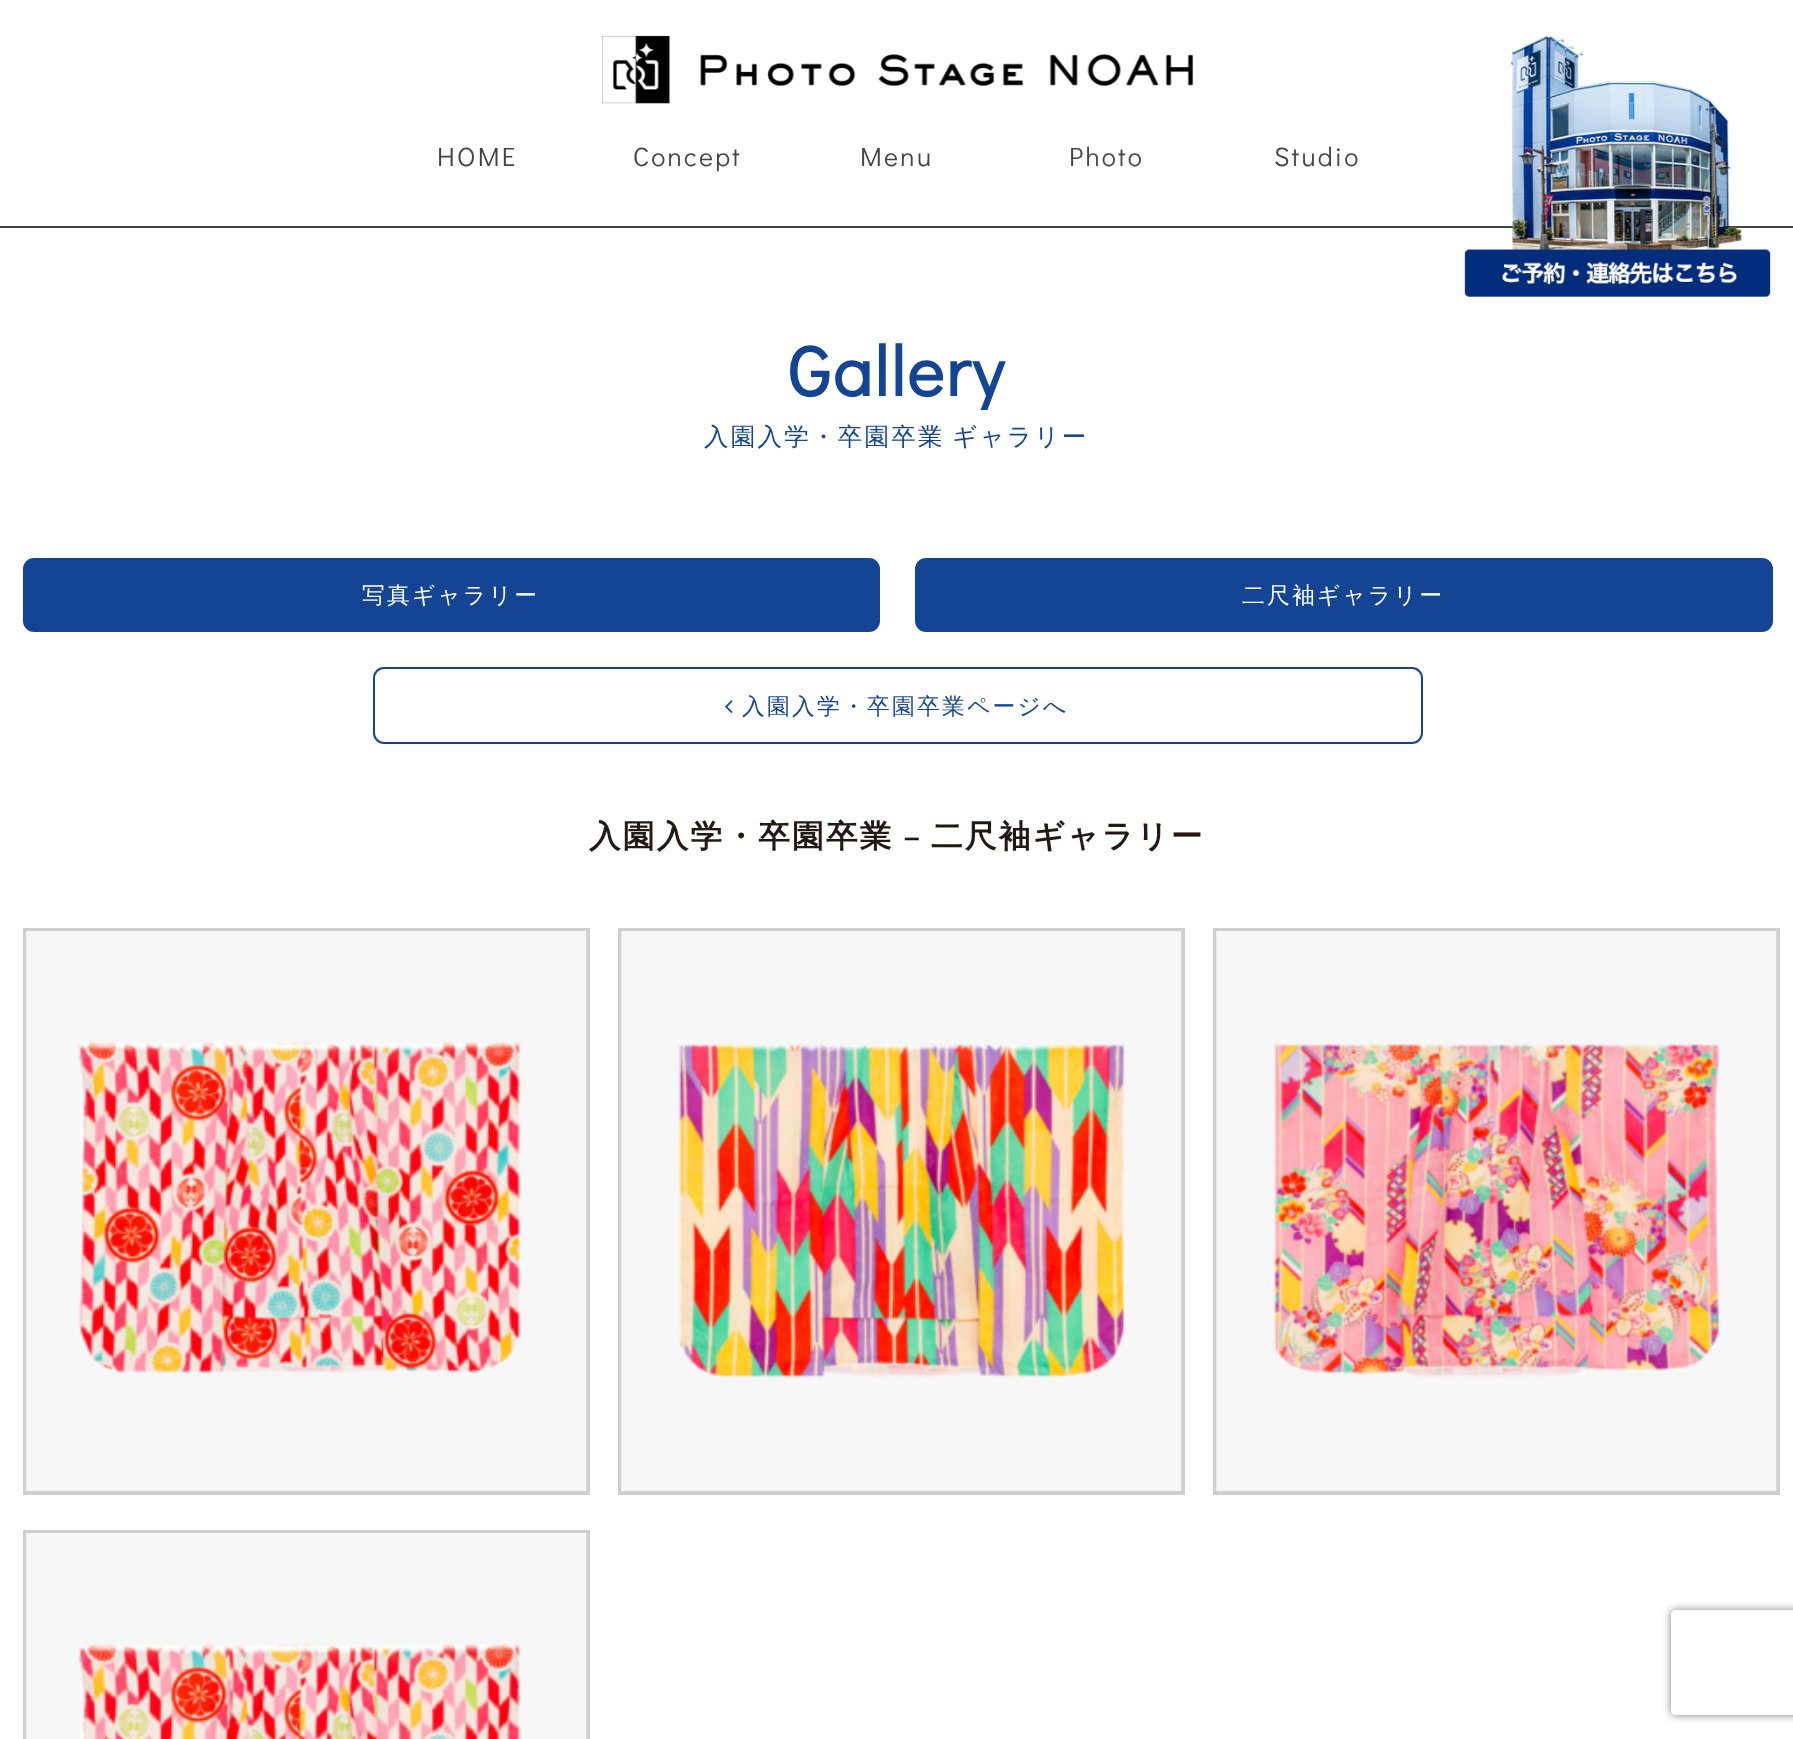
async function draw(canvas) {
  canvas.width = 1793
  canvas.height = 1739
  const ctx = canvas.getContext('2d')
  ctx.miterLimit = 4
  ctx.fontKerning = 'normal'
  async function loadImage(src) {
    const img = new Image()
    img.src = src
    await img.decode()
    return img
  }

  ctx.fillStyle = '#fff'
  ctx.fillRect(0, 0, 1793, 1739)
  ctx.fillStyle = '#444'
  ctx.fillRect(0, 226, 1793, 2)
  ctx.drawImage(await loadImage('image0.png'), 602, 35, 592, 69)
  ctx.drawImage(await loadImage('image1.png'), 1464, 35, 307, 262)
  ctx.letterSpacing = '2.25px'
  ctx.font = '26.5px Didact Gothic'
  ctx.fillText('HOME', 437, 166)
  ctx.fillText('Concept', 633, 166)
  ctx.fillText('Menu', 860, 166)
  ctx.fillText('Photo', 1069, 166)
  ctx.fillText('Studio', 1274, 166)
  ctx.font = 'bold 70px Didact Gothic'
  ctx.fillStyle = '#144595'
  ctx.fillText('Gallery', 788, 396)
  ctx.wordSpacing = '-2px'
  ctx.font = '500 24.5px WenQuanYi Zen Hei'
  ctx.fillText('入園入学・卒園卒業 ギャラリー', 704, 445)
  ctx.beginPath()
  ctx.roundRect(23, 558, 857, 74, 11)
  ctx.fill()
  ctx.wordSpacing = '0px'
  ctx.font = '500 22.75px WenQuanYi Zen Hei'
  ctx.fillStyle = '#fff'
  ctx.fillText('写真ギャラリー', 362, 603)
  ctx.fillStyle = '#144595'
  ctx.beginPath()
  ctx.roundRect(915, 558, 858, 74, 11)
  ctx.fill()
  ctx.fillStyle = '#fff'
  ctx.fillText('二尺袖ギャラリー', 1242, 603)
  ctx.beginPath()
  ctx.roundRect(374, 668, 1048, 75, 10)
  ctx.strokeStyle = '#144595'
  ctx.lineWidth = 2
  ctx.stroke()
  ctx.drawImage(await loadImage('image2.png'), 725, 700, 8, 13)
  ctx.fillStyle = '#144595'
  ctx.fillText('入園入学・卒園卒業ページへ', 742, 714)
  ctx.font = 'bold 31.6px WenQuanYi Zen Hei'
  ctx.fillStyle = '#231815'
  ctx.fillText('入園入学・卒園卒業', 589, 847)
  ctx.font = 'bold 31.6px Didact Gothic'
  ctx.fillText('–', 903, 847)
  ctx.font = 'bold 31.6px WenQuanYi Zen Hei'
  ctx.fillText('二尺袖ギャラリー', 931, 847)
  ctx.strokeStyle = '#cfcfcf'
  ctx.lineWidth = 4
  ctx.strokeRect(25, 930, 563, 563)
  ctx.drawImage(await loadImage('image3.png'), 26, 931, 561, 560)
  ctx.strokeRect(620, 930, 563, 563)
  ctx.drawImage(await loadImage('image4.png'), 621, 931, 561, 560)
  ctx.strokeRect(1215, 930, 563, 563)
  ctx.drawImage(await loadImage('image5.png'), 1216, 931, 561, 560)
  ctx.strokeRect(25, 1532, 563, 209)
  ctx.drawImage(await loadImage('image6.png'), 26, 1533, 561, 206)
  ctx.save()
  ctx.beginPath()
  ctx.moveTo(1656, 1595)
  ctx.lineTo(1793, 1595)
  ctx.lineTo(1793, 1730)
  ctx.lineTo(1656, 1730)
  ctx.closePath()
  ctx.moveTo(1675, 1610)
  ctx.lineTo(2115, 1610)
  ctx.bezierCurveTo(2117, 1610, 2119, 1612, 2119, 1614)
  ctx.lineTo(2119, 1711)
  ctx.bezierCurveTo(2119, 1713, 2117, 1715, 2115, 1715)
  ctx.lineTo(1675, 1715)
  ctx.bezierCurveTo(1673, 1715, 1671, 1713, 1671, 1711)
  ctx.lineTo(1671, 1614)
  ctx.bezierCurveTo(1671, 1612, 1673, 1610, 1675, 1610)
  ctx.closePath()
  ctx.clip('evenodd')
  ctx.fillStyle = '#808080'
  ctx.filter = 'blur(4.5px)'
  ctx.beginPath()
  ctx.roundRect(1671, 1610, 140, 105, 4)
  ctx.fill()
  ctx.filter = 'none'
  ctx.restore()
}

draw(document.querySelector('canvas'))
